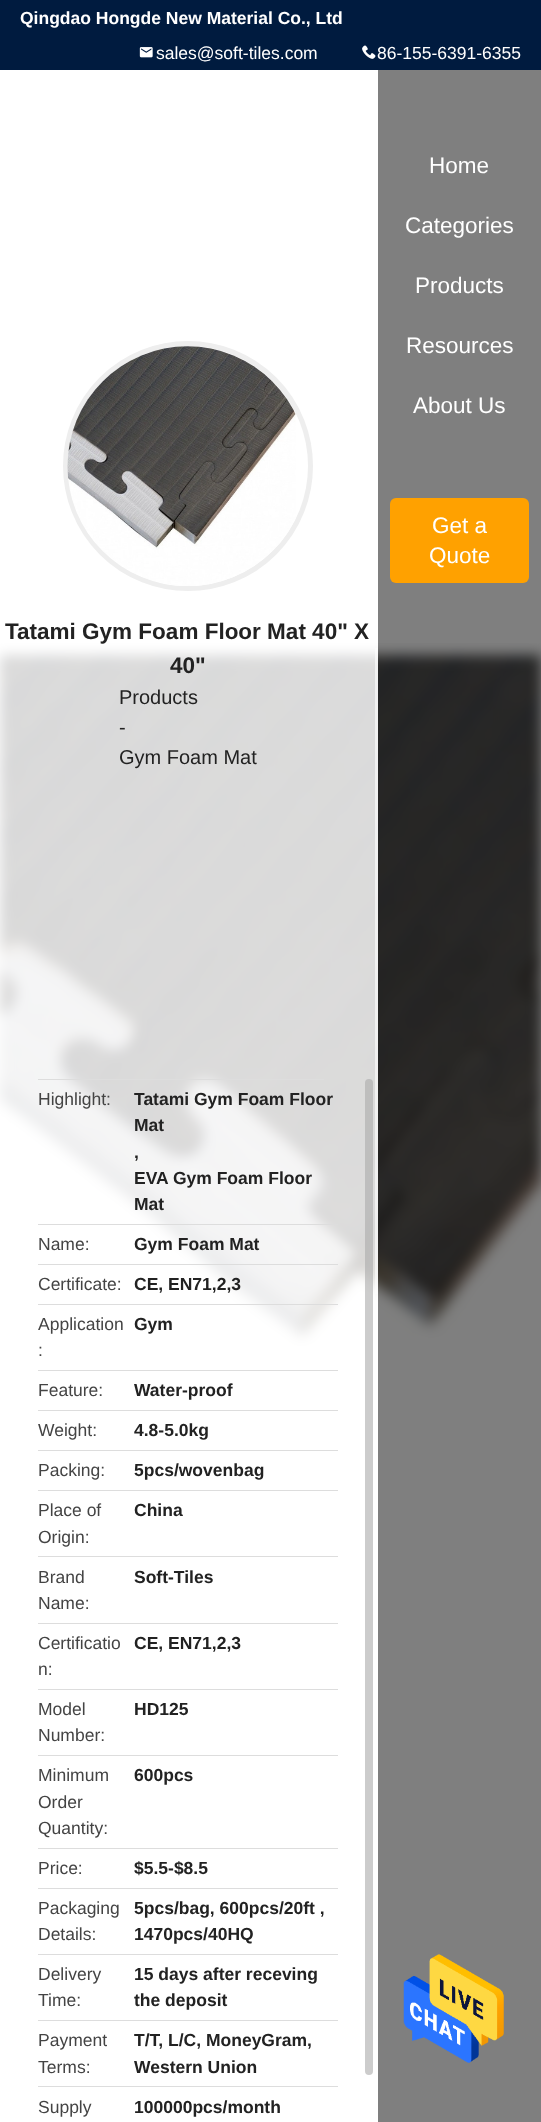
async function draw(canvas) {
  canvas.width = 541
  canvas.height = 2122
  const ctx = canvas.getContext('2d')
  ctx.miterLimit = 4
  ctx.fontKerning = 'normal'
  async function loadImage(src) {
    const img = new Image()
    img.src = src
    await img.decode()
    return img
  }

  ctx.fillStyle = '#fff'
  ctx.fillRect(0, 0, 541, 2122)
  ctx.fillStyle = '#001b3f'
  ctx.fillRect(0, 0, 541, 70)
  ctx.font = 'bold 17.5px Liberation Sans'
  ctx.fillStyle = '#fff'
  ctx.fillText('Qingdao Hongde New Material Co., Ltd', 20, 24)
  ctx.drawImage(await loadImage('image0.png'), 139, 47, 14, 11)
  ctx.font = '17.5px Liberation Sans'
  ctx.fillText('sales@soft-tiles.com', 156, 59)
  ctx.drawImage(await loadImage('image1.png'), 362, 45, 14, 14)
  ctx.fillText('86-155-6391-6355', 377, 59)
  ctx.drawImage(await loadImage('image3.png'), 0, 643, 541, 703)
  ctx.fillStyle = '#00000080'
  ctx.fillRect(378, 70, 163, 2052)
  ctx.font = '22.5px Liberation Sans'
  ctx.fillStyle = '#fff'
  ctx.fillText('Home', 429, 173)
  ctx.fillText('Categories', 405, 233)
  ctx.fillText('Products', 415, 293)
  ctx.fillText('Resources', 406, 353)
  ctx.fillText('About Us', 413, 413)
  ctx.fillStyle = '#ffa100'
  ctx.beginPath()
  ctx.roundRect(390, 498, 139, 85, 6)
  ctx.fill()
  ctx.fillStyle = '#fff'
  ctx.fillText('Get a', 432, 533)
  ctx.fillText('Quote', 429, 563)
  ctx.fillStyle = '#ffffffcc'
  ctx.fillRect(0, 643, 378, 703)
  ctx.fillStyle = '#ffffff99'
  ctx.fillRect(375, 648, 3, 646)
  ctx.beginPath()
  ctx.arc(188, 466, 122.5, 0, 2 * Math.PI)
  ctx.strokeStyle = '#eee'
  ctx.lineWidth = 5
  ctx.stroke()
  ctx.drawImage(await loadImage('image2.png'), 67, 346, 229, 240)
  ctx.font = 'bold 22.5px Liberation Sans'
  ctx.fillStyle = '#222'
  ctx.fillText('Tatami Gym Foam Floor Mat 40" X', 5, 639)
  ctx.fillText('40"', 170, 673)
  ctx.font = '20px Liberation Sans'
  ctx.fillText('Products', 119, 704)
  ctx.fillText('-', 119, 734)
  ctx.fillText('Gym Foam Mat', 119, 764)
  ctx.fillStyle = '#ddd'
  ctx.fillRect(38, 1079, 286, 1)
  ctx.font = '17.5px Liberation Sans'
  ctx.fillStyle = '#444'
  ctx.fillText('Highlight:', 38, 1105)
  ctx.font = 'bold 17.5px Liberation Sans'
  ctx.fillStyle = '#222'
  ctx.fillText('Tatami Gym Foam Floor', 134, 1105)
  ctx.fillText('Mat', 134, 1131)
  ctx.fillText(',', 134, 1158)
  ctx.fillText('EVA Gym Foam Floor', 134, 1184)
  ctx.fillText('Mat', 134, 1210)
  ctx.fillStyle = '#ddd'
  ctx.fillRect(38, 1224, 300, 1)
  ctx.font = '17.5px Liberation Sans'
  ctx.fillStyle = '#444'
  ctx.fillText('Name:', 38, 1250)
  ctx.font = 'bold 17.5px Liberation Sans'
  ctx.fillStyle = '#222'
  ctx.fillText('Gym Foam Mat', 134, 1250)
  ctx.fillStyle = '#ddd'
  ctx.fillRect(38, 1264, 300, 1)
  ctx.font = '17.5px Liberation Sans'
  ctx.fillStyle = '#444'
  ctx.fillText('Certificate:', 38, 1290)
  ctx.font = 'bold 17.5px Liberation Sans'
  ctx.fillStyle = '#222'
  ctx.fillText('CE, EN71,2,3', 134, 1290)
  ctx.fillStyle = '#ddd'
  ctx.fillRect(38, 1304, 300, 1)
  ctx.font = '17.5px Liberation Sans'
  ctx.fillStyle = '#444'
  ctx.fillText('Application', 38, 1330)
  ctx.fillText(':', 38, 1356)
  ctx.font = 'bold 17.5px Liberation Sans'
  ctx.fillStyle = '#222'
  ctx.fillText('Gym', 134, 1330)
  ctx.fillStyle = '#ddd'
  ctx.fillRect(38, 1370, 300, 1)
  ctx.font = '17.5px Liberation Sans'
  ctx.fillStyle = '#444'
  ctx.fillText('Feature:', 38, 1396)
  ctx.font = 'bold 17.5px Liberation Sans'
  ctx.fillStyle = '#222'
  ctx.fillText('Water-proof', 134, 1396)
  ctx.fillStyle = '#ddd'
  ctx.fillRect(38, 1410, 300, 1)
  ctx.font = '17.5px Liberation Sans'
  ctx.fillStyle = '#444'
  ctx.fillText('Weight:', 38, 1436)
  ctx.font = 'bold 17.5px Liberation Sans'
  ctx.fillStyle = '#222'
  ctx.fillText('4.8-5.0kg', 134, 1436)
  ctx.fillStyle = '#ddd'
  ctx.fillRect(38, 1450, 300, 1)
  ctx.font = '17.5px Liberation Sans'
  ctx.fillStyle = '#444'
  ctx.fillText('Packing:', 38, 1476)
  ctx.font = 'bold 17.5px Liberation Sans'
  ctx.fillStyle = '#222'
  ctx.fillText('5pcs/wovenbag', 134, 1476)
  ctx.fillStyle = '#ddd'
  ctx.fillRect(38, 1490, 300, 1)
  ctx.font = '17.5px Liberation Sans'
  ctx.fillStyle = '#444'
  ctx.fillText('Place of', 38, 1516)
  ctx.fillText('Origin:', 38, 1543)
  ctx.font = 'bold 17.5px Liberation Sans'
  ctx.fillStyle = '#222'
  ctx.fillText('China', 134, 1516)
  ctx.fillStyle = '#ddd'
  ctx.fillRect(38, 1556, 300, 1)
  ctx.font = '17.5px Liberation Sans'
  ctx.fillStyle = '#444'
  ctx.fillText('Brand', 38, 1583)
  ctx.fillText('Name:', 38, 1609)
  ctx.font = 'bold 17.5px Liberation Sans'
  ctx.fillStyle = '#222'
  ctx.fillText('Soft-Tiles', 134, 1583)
  ctx.fillStyle = '#ddd'
  ctx.fillRect(38, 1623, 300, 1)
  ctx.font = '17.5px Liberation Sans'
  ctx.fillStyle = '#444'
  ctx.fillText('Certificatio', 38, 1649)
  ctx.fillText('n:', 38, 1675)
  ctx.font = 'bold 17.5px Liberation Sans'
  ctx.fillStyle = '#222'
  ctx.fillText('CE, EN71,2,3', 134, 1649)
  ctx.fillStyle = '#ddd'
  ctx.fillRect(38, 1689, 300, 1)
  ctx.font = '17.5px Liberation Sans'
  ctx.fillStyle = '#444'
  ctx.fillText('Model', 38, 1715)
  ctx.fillText('Number:', 38, 1741)
  ctx.font = 'bold 17.5px Liberation Sans'
  ctx.fillStyle = '#222'
  ctx.fillText('HD125', 134, 1715)
  ctx.fillStyle = '#ddd'
  ctx.fillRect(38, 1755, 300, 1)
  ctx.font = '17.5px Liberation Sans'
  ctx.fillStyle = '#444'
  ctx.fillText('Minimum', 38, 1781)
  ctx.fillText('Order', 38, 1808)
  ctx.fillText('Quantity:', 38, 1834)
  ctx.font = 'bold 17.5px Liberation Sans'
  ctx.fillStyle = '#222'
  ctx.fillText('600pcs', 134, 1781)
  ctx.fillStyle = '#ddd'
  ctx.fillRect(38, 1848, 300, 1)
  ctx.font = '17.5px Liberation Sans'
  ctx.fillStyle = '#444'
  ctx.fillText('Price:', 38, 1874)
  ctx.font = 'bold 17.5px Liberation Sans'
  ctx.fillStyle = '#222'
  ctx.fillText('$5.5-$8.5', 134, 1874)
  ctx.fillStyle = '#ddd'
  ctx.fillRect(38, 1888, 300, 1)
  ctx.font = '17.5px Liberation Sans'
  ctx.fillStyle = '#444'
  ctx.fillText('Packaging', 38, 1914)
  ctx.fillText('Details:', 38, 1940)
  ctx.font = 'bold 17.5px Liberation Sans'
  ctx.fillStyle = '#222'
  ctx.fillText('5pcs/bag, 600pcs/20ft ,', 134, 1914)
  ctx.fillText('1470pcs/40HQ', 134, 1940)
  ctx.fillStyle = '#ddd'
  ctx.fillRect(38, 1954, 300, 1)
  ctx.font = '17.5px Liberation Sans'
  ctx.fillStyle = '#444'
  ctx.fillText('Delivery', 38, 1980)
  ctx.fillText('Time:', 38, 2006)
  ctx.font = 'bold 17.5px Liberation Sans'
  ctx.fillStyle = '#222'
  ctx.fillText('15 days after receving', 134, 1980)
  ctx.fillText('the deposit', 134, 2006)
  ctx.fillStyle = '#ddd'
  ctx.fillRect(38, 2020, 300, 1)
  ctx.font = '17.5px Liberation Sans'
  ctx.fillStyle = '#444'
  ctx.fillText('Payment', 38, 2046)
  ctx.fillText('Terms:', 38, 2073)
  ctx.font = 'bold 17.5px Liberation Sans'
  ctx.fillStyle = '#222'
  ctx.fillText('T/T, L/C, MoneyGram,', 134, 2046)
  ctx.fillText('Western Union', 134, 2073)
  ctx.fillStyle = '#ddd'
  ctx.fillRect(38, 2086, 300, 1)
  ctx.font = '17.5px Liberation Sans'
  ctx.fillStyle = '#444'
  ctx.fillText('Supply', 38, 2113)
  ctx.font = 'bold 17.5px Liberation Sans'
  ctx.fillStyle = '#222'
  ctx.fillText('100000pcs/month', 134, 2113)
  ctx.fillStyle = '#aaaaaa99'
  ctx.beginPath()
  ctx.roundRect(365, 1079, 8, 996, 4)
  ctx.fill()
  ctx.drawImage(await loadImage('image4.png'), 403, 1954, 101, 109)
}

draw(document.querySelector('canvas'))
